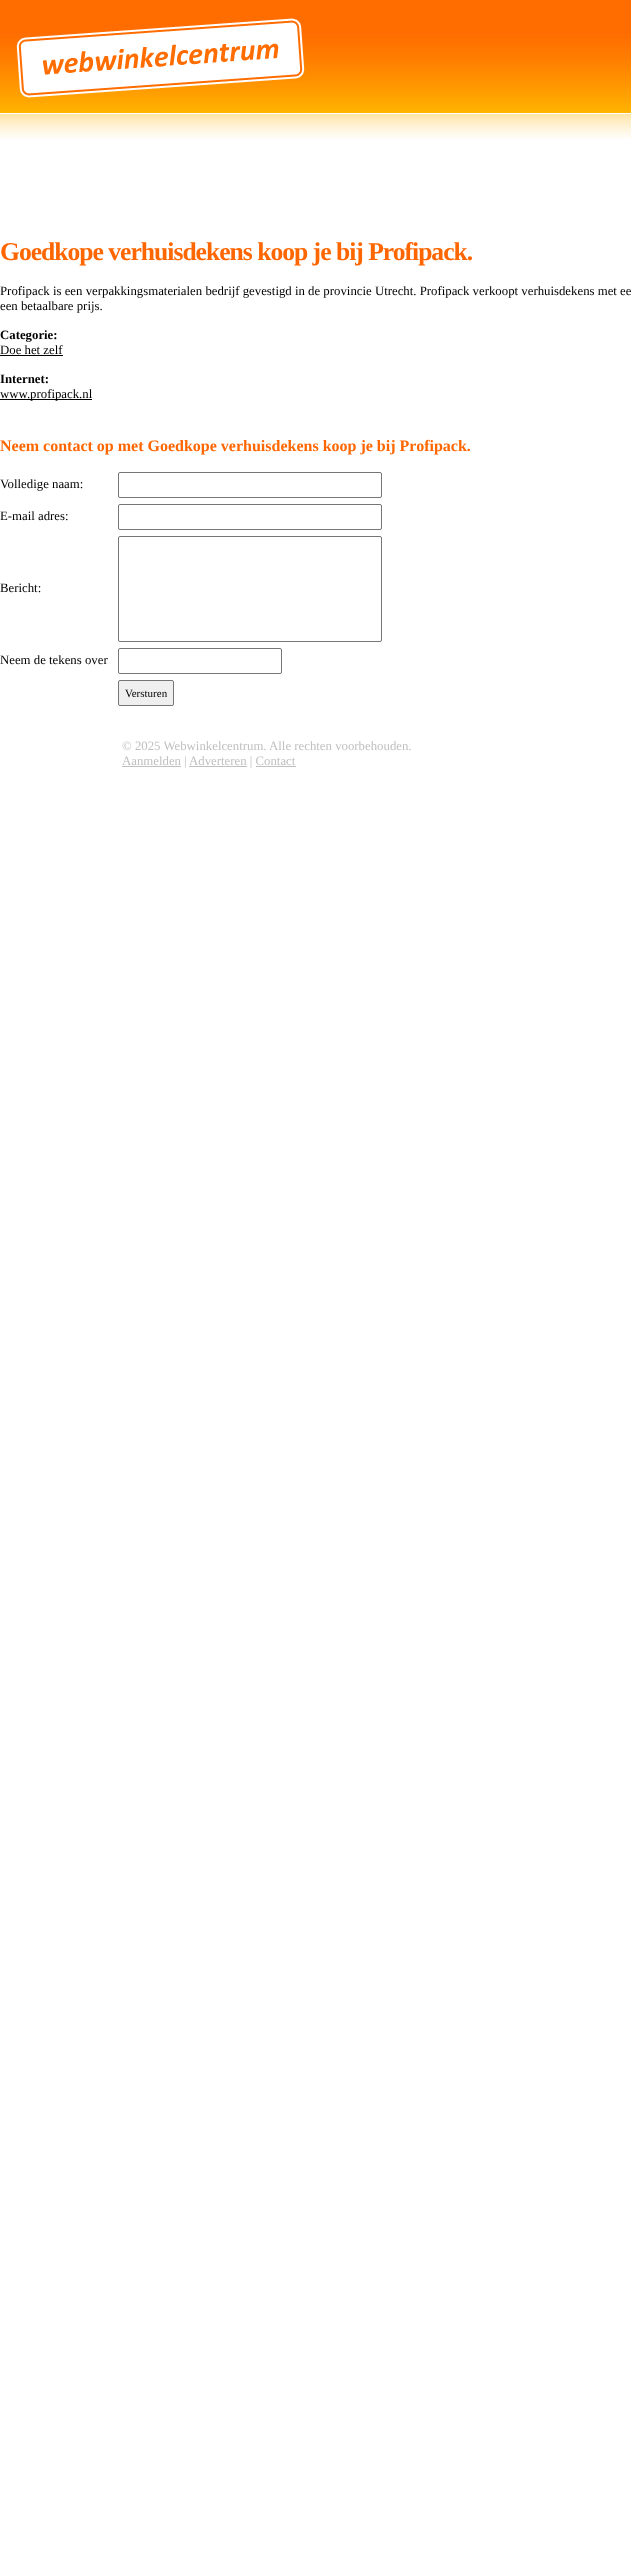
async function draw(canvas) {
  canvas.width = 631
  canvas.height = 2558
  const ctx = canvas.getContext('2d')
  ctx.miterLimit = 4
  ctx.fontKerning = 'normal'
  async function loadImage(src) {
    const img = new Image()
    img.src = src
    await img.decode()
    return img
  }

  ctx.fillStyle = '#fff'
  ctx.fillRect(0, 0, 631, 2558)
  ctx.drawImage(await loadImage('image0.png'), 0, 0, 631, 139)
  ctx.drawImage(await loadImage('image1.png'), 16, 18, 289, 80)
  ctx.letterSpacing = '-1px'
  ctx.font = 'bold 25.6px Liberation Serif'
  ctx.fillStyle = '#f60'
  ctx.fillText('Goedkope verhuisdekens koop je bij Profipack.', 0, 260)
  ctx.letterSpacing = '0px'
  ctx.font = '12.8px Liberation Serif'
  ctx.fillStyle = '#000'
  ctx.fillText('Profipack is een verpakkingsmaterialen bedrijf gevestigd in de provincie Utrecht. Profipack verkoopt verhuisdekens met ee', 0, 295)
  ctx.fillText('een betaalbare prijs.', 0, 310)
  ctx.font = 'bold 12.8px Liberation Serif'
  ctx.fillText('Categorie:', 0, 339)
  ctx.font = '12.8px Liberation Serif'
  ctx.fillText('Doe het zelf', 0, 354)
  ctx.fillRect(0, 355, 63, 1)
  ctx.font = 'bold 12.8px Liberation Serif'
  ctx.fillText('Internet:', 0, 383)
  ctx.fillRect(0, 399, 92, 1)
  ctx.font = '12.8px Liberation Serif'
  ctx.fillText('www.profipack.nl', 0, 398)
  ctx.font = 'bold 16px Liberation Serif'
  ctx.fillStyle = '#f60'
  ctx.fillText('Neem contact op met Goedkope verhuisdekens koop je bij Profipack.', 0, 451)
  ctx.font = '12.8px Liberation Serif'
  ctx.fillStyle = '#000'
  ctx.fillText('Volledige naam:', 0, 488)
  ctx.beginPath()
  ctx.roundRect(118.5, 472.5, 263, 25, 1.5)
  ctx.strokeStyle = '#767676'
  ctx.stroke()
  ctx.fillText('E-mail adres:', 0, 520)
  ctx.beginPath()
  ctx.roundRect(118.5, 504.5, 263, 25, 1.5)
  ctx.stroke()
  ctx.fillText('Bericht:', 0, 592)
  ctx.beginPath()
  ctx.roundRect(118.5, 536.5, 263, 105, 1.5)
  ctx.stroke()
  ctx.fillText('Neem de tekens over', 0, 664)
  ctx.beginPath()
  ctx.roundRect(118.5, 648.5, 163, 25, 1.5)
  ctx.stroke()
  ctx.fillStyle = '#efefef'
  ctx.beginPath()
  ctx.roundRect(118.5, 680.5, 55, 25, 1.5)
  ctx.fill()
  ctx.stroke()
  ctx.font = '11px Liberation Serif'
  ctx.fillStyle = '#000'
  ctx.fillText('Versturen', 125, 697)
  ctx.font = '12.8px Liberation Serif'
  ctx.fillStyle = '#c0c0c0'
  ctx.fillText('© 2025 Webwinkelcentrum. Alle rechten voorbehouden.', 122, 750)
  ctx.fillText('Aanmelden', 122, 765)
  ctx.fillRect(122, 766, 59, 1)
  ctx.fillText('|', 184, 765)
  ctx.fillRect(189, 766, 58, 1)
  ctx.fillText('Adverteren | Contact', 189, 765)
  ctx.fillRect(256, 766, 40, 1)
}

draw(document.querySelector('canvas'))
